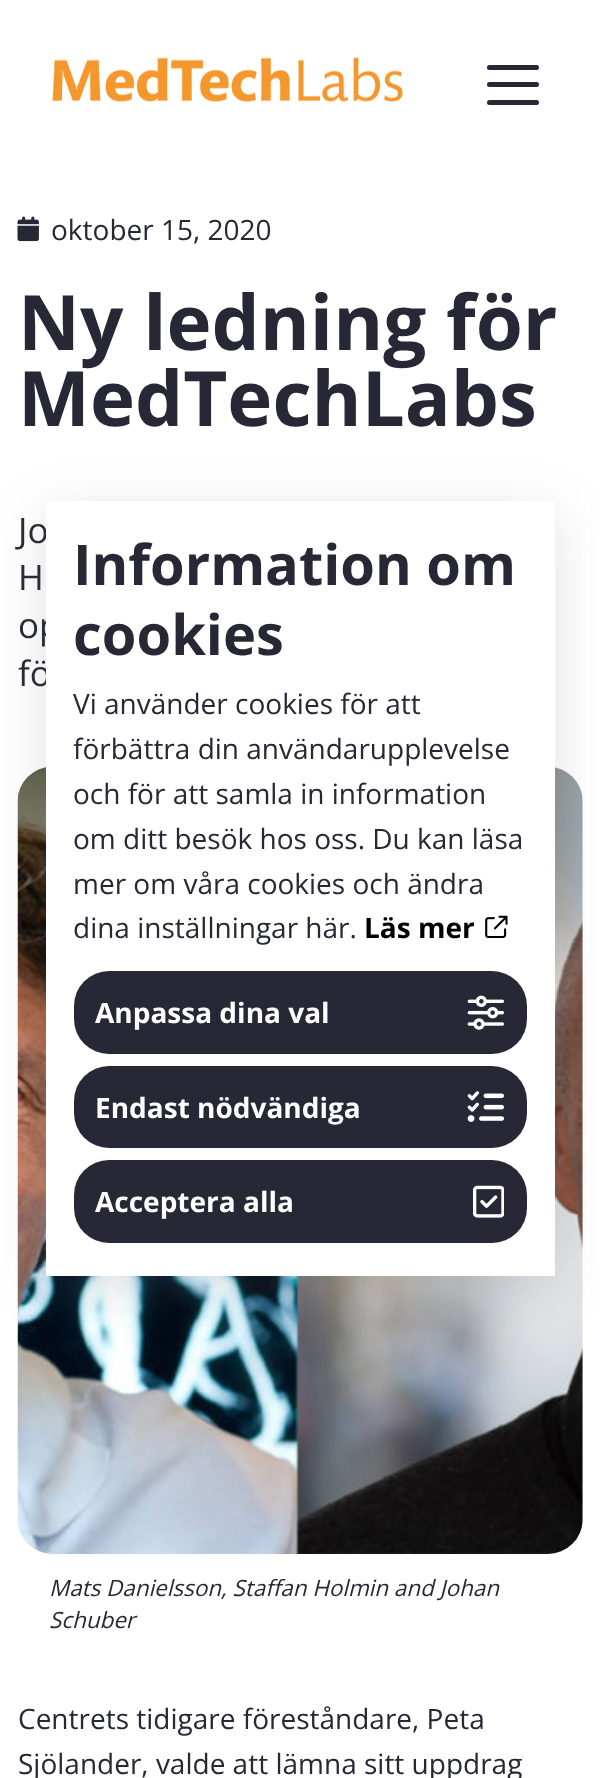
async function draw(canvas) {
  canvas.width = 600
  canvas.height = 1778
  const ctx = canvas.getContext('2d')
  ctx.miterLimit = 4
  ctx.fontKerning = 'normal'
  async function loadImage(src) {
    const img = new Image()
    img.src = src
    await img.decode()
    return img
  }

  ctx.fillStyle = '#fff'
  ctx.fillRect(0, 0, 600, 1778)
  ctx.drawImage(await loadImage('image0.png'), 52, 57, 351, 45)
  ctx.fillStyle = '#272736'
  ctx.beginPath()
  ctx.roundRect(487, 65, 52, 5, 2.5)
  ctx.fill()
  ctx.beginPath()
  ctx.roundRect(487, 82, 52, 5, 2.5)
  ctx.fill()
  ctx.beginPath()
  ctx.roundRect(487, 100, 52, 5, 2.5)
  ctx.fill()
  ctx.drawImage(await loadImage('image1.png'), 17, 216, 22, 26)
  ctx.font = '28px Open Sans'
  ctx.fillText('oktober 15, 2020', 51, 240)
  ctx.font = 'bold 76.25px Open Sans'
  ctx.fillText('Ny ledning för', 18, 350)
  ctx.fillText('MedTechLabs', 18, 426)
  ctx.font = '35px Open Sans'
  ctx.fillText('Jo', 18, 543)
  ctx.fillText('H', 18, 590)
  ctx.fillText('op', 18, 638)
  ctx.fillText('fö', 18, 686)
  ctx.drawImage(await loadImage('image2.png'), 17, 767, 566, 787)
  ctx.font = 'italic 22.4px Open Sans'
  ctx.fillText('Mats Danielsson, Staffan Holmin and Johan', 49, 1596)
  ctx.fillText('Schuber', 49, 1628)
  ctx.font = '28px Open Sans'
  ctx.fillText('Centrets tidigare föreståndare, Peta', 18, 1729)
  ctx.fillText('Sjölander, valde att lämna sitt uppdrag', 18, 1774)
  ctx.fillStyle = '#64646f33'
  ctx.filter = 'blur(25.5px)'
  ctx.beginPath()
  ctx.rect(46, 513, 509, 775)
  ctx.fill()
  ctx.filter = 'none'
  ctx.fillStyle = '#fff'
  ctx.fillRect(46, 501, 509, 775)
  ctx.font = 'bold 56px Open Sans'
  ctx.fillStyle = '#272736'
  ctx.fillText('Information om', 73, 585)
  ctx.fillText('cookies', 73, 655)
  ctx.font = '28px Open Sans'
  ctx.fillText('Vi använder cookies för att', 73, 714)
  ctx.fillText('förbättra din användarupplevelse', 73, 759)
  ctx.fillText('och för att samla in information', 73, 804)
  ctx.fillText('om ditt besök hos oss. Du kan läsa', 73, 849)
  ctx.fillText('mer om våra cookies och ändra', 73, 894)
  ctx.fillText('dina inställningar här.', 73, 938)
  ctx.font = 'bold 28px Open Sans'
  ctx.fillStyle = '#000'
  ctx.fillText('Läs mer', 364, 938)
  ctx.drawImage(await loadImage('image3.png'), 485, 915, 23, 23)
  ctx.fillStyle = '#272736'
  ctx.beginPath()
  ctx.roundRect(74, 971, 453, 83, 35)
  ctx.fill()
  ctx.fillStyle = '#fff'
  ctx.fillText('Anpassa dina val', 95, 1023)
  ctx.drawImage(await loadImage('image4.png'), 467, 995, 37, 35)
  ctx.fillStyle = '#272736'
  ctx.beginPath()
  ctx.roundRect(74, 1066, 453, 82, 35)
  ctx.fill()
  ctx.fillStyle = '#fff'
  ctx.fillText('Endast nödvändiga', 95, 1118)
  ctx.drawImage(await loadImage('image5.png'), 467, 1091, 37, 31)
  ctx.fillStyle = '#272736'
  ctx.beginPath()
  ctx.roundRect(74, 1160, 453, 83, 35)
  ctx.fill()
  ctx.fillStyle = '#fff'
  ctx.fillText('Acceptera alla', 95, 1212)
  ctx.drawImage(await loadImage('image6.png'), 473, 1185, 31, 33)
}

draw(document.querySelector('canvas'))
